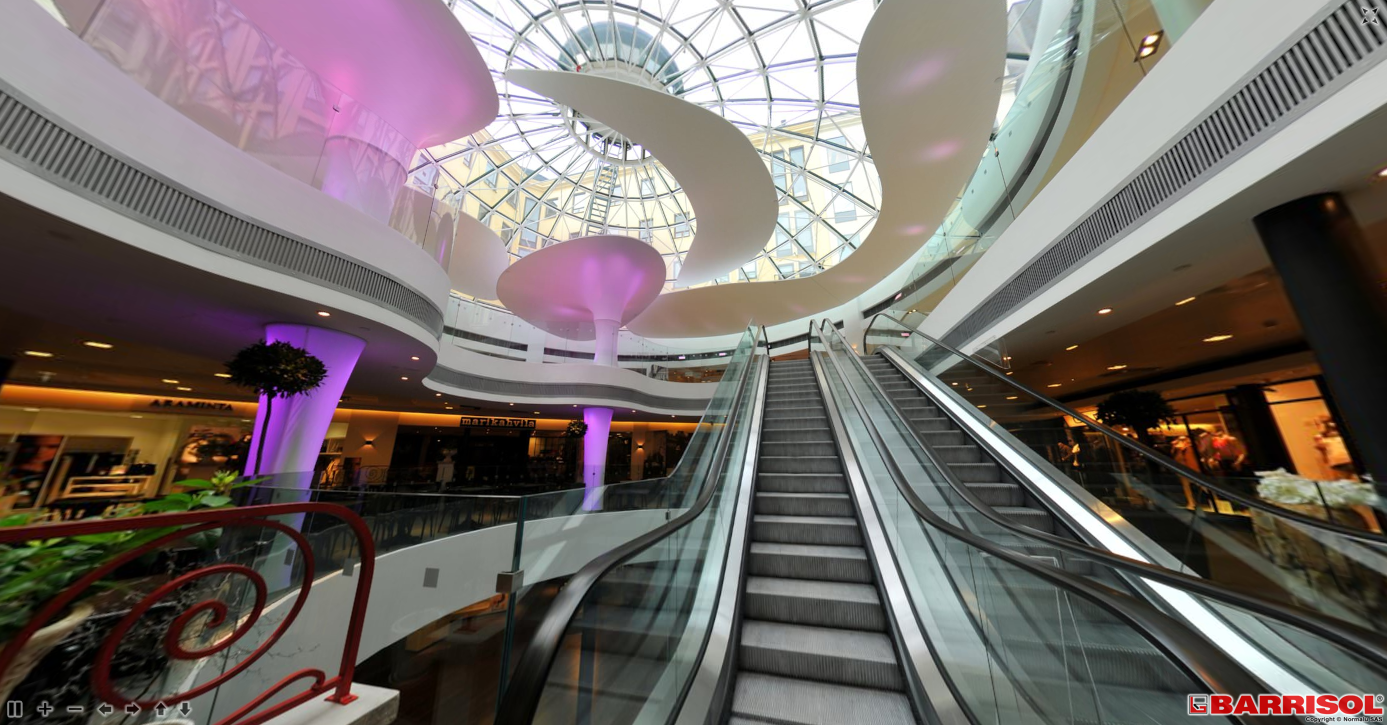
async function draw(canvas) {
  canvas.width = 1387
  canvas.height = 725
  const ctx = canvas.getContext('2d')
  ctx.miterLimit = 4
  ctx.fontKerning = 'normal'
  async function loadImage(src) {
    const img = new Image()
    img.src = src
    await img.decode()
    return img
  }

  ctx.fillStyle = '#fff'
  ctx.fillRect(0, 0, 1387, 725)
  ctx.drawImage(await loadImage('image0.png'), 0, 0, 1387, 725)
  ctx.drawImage(await loadImage('image1.png'), 1360, 6, 20, 20)
  ctx.drawImage(await loadImage('image2.png'), 7, 700, 16, 18)
  ctx.drawImage(await loadImage('image3.png'), 35, 700, 20, 18)
  ctx.drawImage(await loadImage('image4.png'), 65, 705, 20, 8)
  ctx.drawImage(await loadImage('image5.png'), 95, 701, 20, 17)
  ctx.drawImage(await loadImage('image6.png'), 123, 701, 20, 17)
  ctx.drawImage(await loadImage('image7.png'), 152, 699, 17, 19)
  ctx.drawImage(await loadImage('image8.png'), 177, 699, 17, 19)
  ctx.drawImage(await loadImage('image9.png'), 1186, 692, 199, 32)
}

draw(document.querySelector('canvas'))
